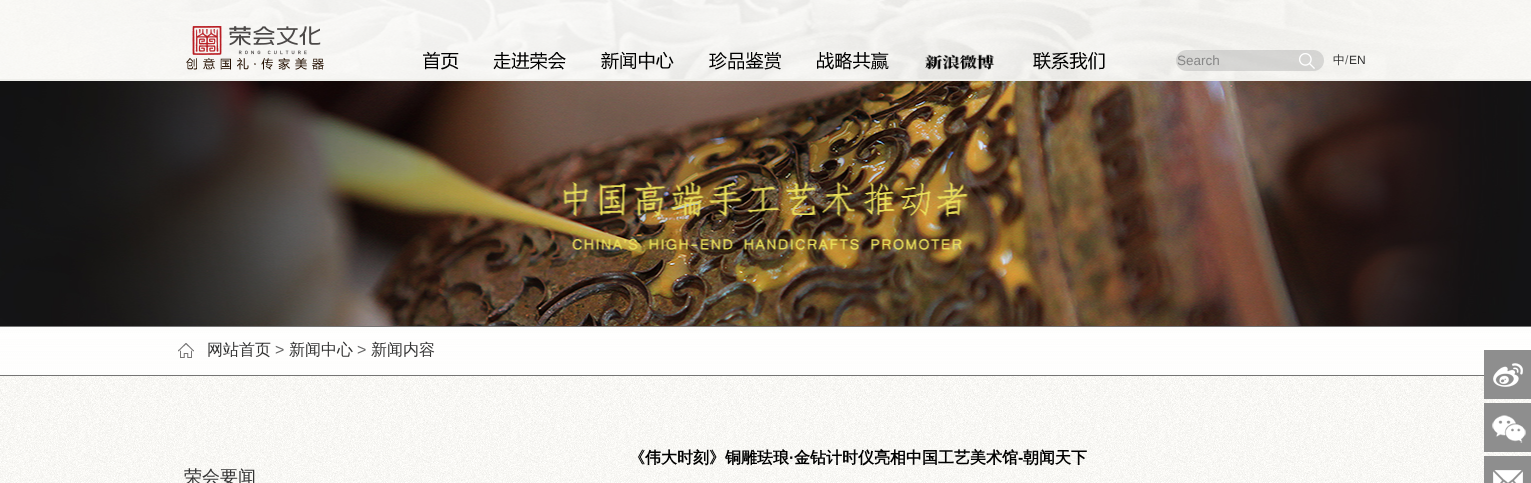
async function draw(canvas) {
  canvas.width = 1531
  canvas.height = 483
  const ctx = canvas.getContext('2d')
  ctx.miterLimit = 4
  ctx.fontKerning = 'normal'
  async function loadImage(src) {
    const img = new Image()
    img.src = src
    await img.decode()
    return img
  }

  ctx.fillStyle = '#fff'
  ctx.fillRect(0, 0, 1531, 483)
  ctx.drawImage(await loadImage('image0.png'), 0, 376, 1531, 107)
  ctx.drawImage(await loadImage('image1.png'), 0, 0, 1531, 81)
  ctx.drawImage(await loadImage('image2.png'), 186, 26, 138, 44)
  ctx.drawImage(await loadImage('image3.png'), 423, 51, 36, 19)
  ctx.drawImage(await loadImage('image4.png'), 493, 52, 73, 18)
  ctx.drawImage(await loadImage('image5.png'), 601, 51, 73, 19)
  ctx.drawImage(await loadImage('image6.png'), 709, 52, 72, 18)
  ctx.drawImage(await loadImage('image7.png'), 817, 52, 72, 18)
  ctx.drawImage(await loadImage('image8.png'), 925, 54, 70, 16)
  ctx.drawImage(await loadImage('image9.png'), 1033, 52, 72, 18)
  ctx.drawImage(await loadImage('image10.png'), 1176, 50, 115, 21)
  ctx.font = '13.5px Liberation Sans'
  ctx.fillStyle = '#888'
  ctx.fillText('Search', 1177, 65)
  ctx.drawImage(await loadImage('image11.png'), 1291, 50, 33, 21)
  ctx.font = '500 12px WenQuanYi Zen Hei'
  ctx.fillStyle = '#333'
  ctx.fillText('中', 1333, 64)
  ctx.font = '12px Liberation Sans'
  ctx.fillStyle = '#666'
  ctx.fillText('/', 1345, 64)
  ctx.fillStyle = '#333'
  ctx.fillText('EN', 1349, 64)
  ctx.drawImage(await loadImage('image12.png'), 0, 81, 1531, 245)
  ctx.drawImage(await loadImage('image13.png'), 0, 326, 1531, 50)
  ctx.drawImage(await loadImage('image14.png'), 178, 343, 16, 15)
  ctx.font = '500 16px WenQuanYi Zen Hei'
  ctx.fillText('网站首页', 207, 355)
  ctx.font = '16px Liberation Sans'
  ctx.fillStyle = '#666'
  ctx.fillText('>', 275, 355)
  ctx.font = '500 16px WenQuanYi Zen Hei'
  ctx.fillStyle = '#333'
  ctx.fillText('新闻中心', 289, 355)
  ctx.font = '16px Liberation Sans'
  ctx.fillStyle = '#666'
  ctx.fillText('>', 357, 355)
  ctx.font = '500 16px WenQuanYi Zen Hei'
  ctx.fillStyle = '#333'
  ctx.fillText('新闻内容', 371, 355)
  ctx.drawImage(await loadImage('image15.png'), 1484, 350, 47, 49)
  ctx.drawImage(await loadImage('image16.png'), 1484, 403, 47, 49)
  ctx.drawImage(await loadImage('image17.png'), 1484, 456, 47, 27)
  ctx.font = 'bold 16px WenQuanYi Zen Hei'
  ctx.fillStyle = '#000'
  ctx.fillText('《伟大时刻》铜雕珐琅', 629, 463)
  ctx.font = 'bold 16px Liberation Sans'
  ctx.fillText('·', 789, 463)
  ctx.font = 'bold 16px WenQuanYi Zen Hei'
  ctx.fillText('金钻计时仪亮相中国工艺美术馆', 794, 463)
  ctx.font = 'bold 16px Liberation Sans'
  ctx.fillText('-', 1018, 463)
  ctx.font = 'bold 16px WenQuanYi Zen Hei'
  ctx.fillText('朝闻天下', 1023, 463)
  ctx.font = '500 18px WenQuanYi Zen Hei'
  ctx.fillStyle = '#333'
  ctx.fillText('荣会要闻', 184, 483)
}

draw(document.querySelector('canvas'))
